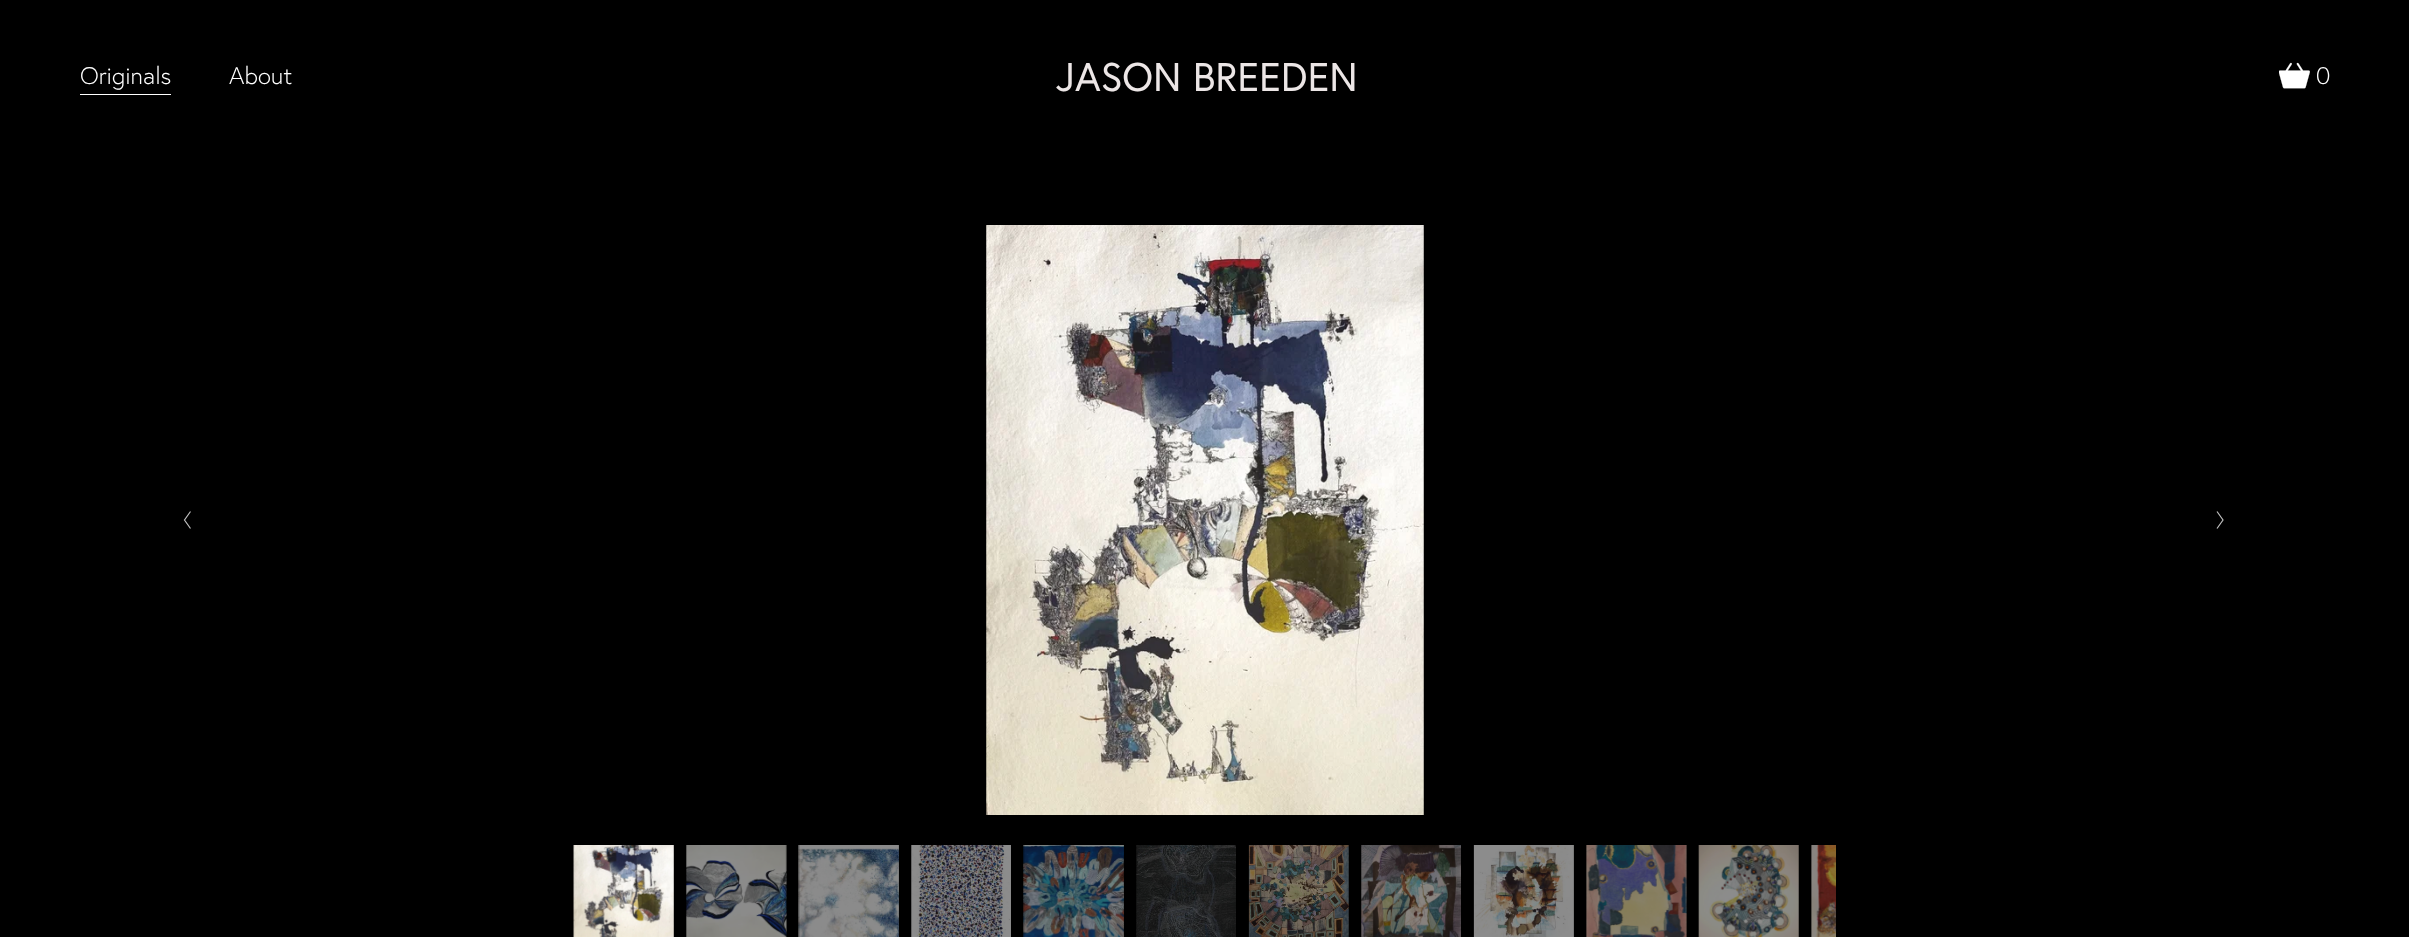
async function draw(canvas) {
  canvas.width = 2409
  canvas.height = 937
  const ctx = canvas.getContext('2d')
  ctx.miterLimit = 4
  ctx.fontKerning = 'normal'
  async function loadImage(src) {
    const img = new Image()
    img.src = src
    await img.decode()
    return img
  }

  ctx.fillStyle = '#000'
  ctx.fillRect(0, 0, 2409, 937)
  ctx.fillStyle = '#fff'
  ctx.fillRect(80, 94, 91, 1)
  ctx.font = '300 24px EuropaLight'
  ctx.fillText('Originals', 80, 84)
  ctx.fillText('About', 229, 84)
  ctx.font = '40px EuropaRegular'
  ctx.fillStyle = '#ece6e6'
  ctx.fillText('JASON BREEDEN', 1056, 91)
  ctx.drawImage(await loadImage('image0.png'), 2279, 62, 31, 27)
  ctx.font = '300 24px EuropaLight'
  ctx.fillStyle = '#fff'
  ctx.fillText('0', 2316, 84)
  ctx.drawImage(await loadImage('image1.png'), 986, 225, 438, 590)
  ctx.beginPath()
  ctx.moveTo(190.5, 528.5)
  ctx.lineTo(184.5, 520)
  ctx.lineTo(190.5, 511.5)
  ctx.strokeStyle = '#bfbfbf'
  ctx.lineWidth = 1.2
  ctx.stroke()
  ctx.beginPath()
  ctx.moveTo(2217, 511.5)
  ctx.lineTo(2223, 520)
  ctx.lineTo(2217, 528.5)
  ctx.stroke()
  ctx.drawImage(await loadImage('image2.png'), 573, 845, 101, 92)
  ctx.drawImage(await loadImage('image3.png'), 686, 845, 101, 92)
  ctx.drawImage(await loadImage('image4.png'), 798, 845, 101, 92)
  ctx.drawImage(await loadImage('image5.png'), 911, 845, 100, 92)
  ctx.drawImage(await loadImage('image6.png'), 1023, 845, 101, 92)
  ctx.drawImage(await loadImage('image7.png'), 1136, 845, 100, 92)
  ctx.drawImage(await loadImage('image8.png'), 1248, 845, 101, 92)
  ctx.drawImage(await loadImage('image9.png'), 1361, 845, 100, 92)
  ctx.drawImage(await loadImage('image10.png'), 1473, 845, 101, 92)
  ctx.drawImage(await loadImage('image11.png'), 1586, 845, 101, 92)
  ctx.drawImage(await loadImage('image12.png'), 1698, 845, 101, 92)
  ctx.drawImage(await loadImage('image13.png'), 1811, 845, 25, 92)
}

draw(document.querySelector('canvas'))
